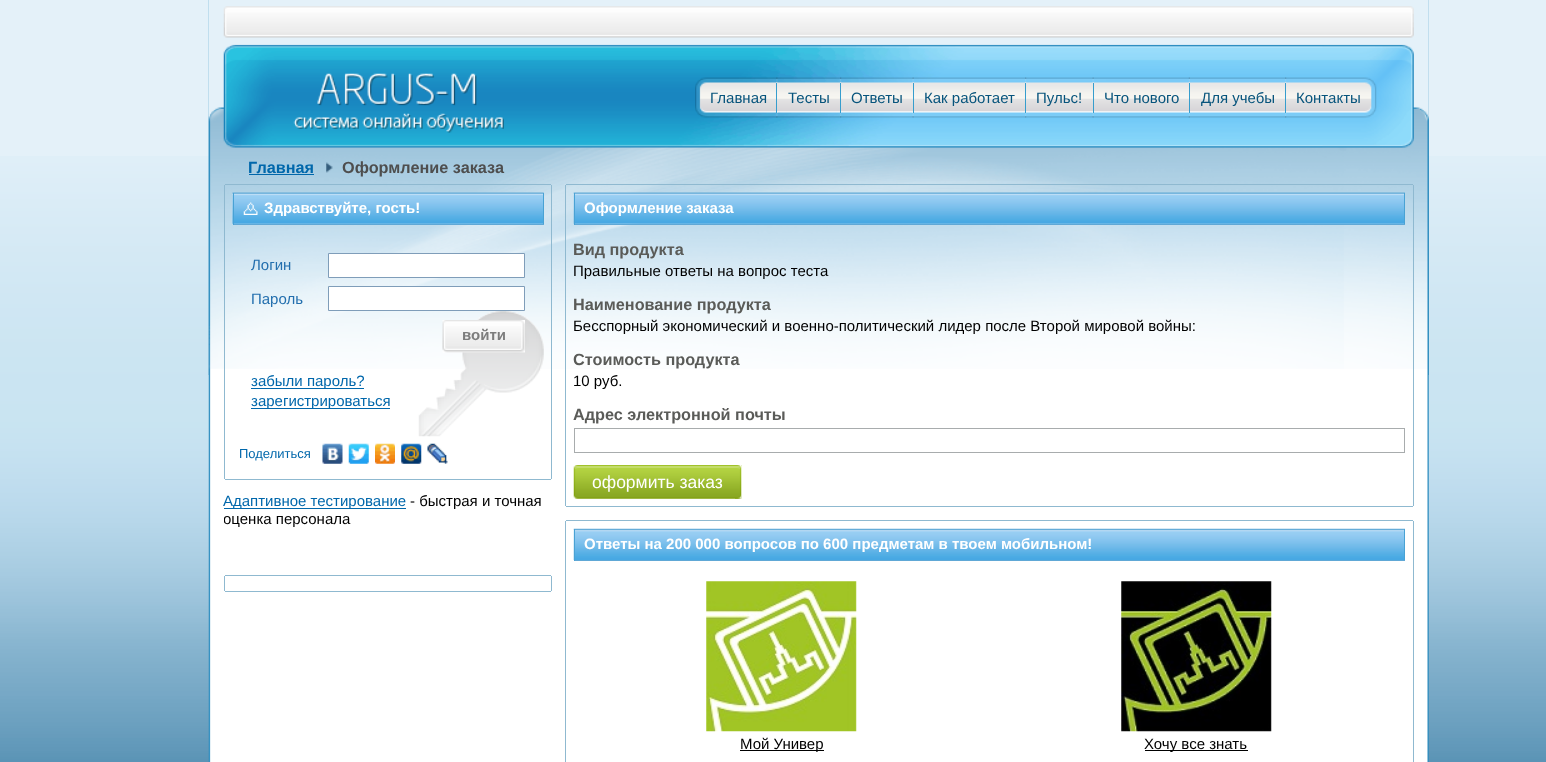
async function draw(canvas) {
  canvas.width = 1546
  canvas.height = 762
  const ctx = canvas.getContext('2d')
  ctx.miterLimit = 4
  ctx.fontKerning = 'normal'
  async function loadImage(src) {
    const img = new Image()
    img.src = src
    await img.decode()
    return img
  }

  ctx.fillStyle = '#e4f1f9'
  ctx.fillRect(0, 0, 1546, 762)
  ctx.drawImage(await loadImage('image0.png'), 0, 156, 1546, 606)
  ctx.drawImage(await loadImage('image1.png'), 208, 0, 1221, 762)
  ctx.drawImage(await loadImage('image2.png'), 208, 0, 1221, 375)
  ctx.drawImage(await loadImage('image3.png'), 223, 6, 1191, 142)
  ctx.drawImage(await loadImage('image4.png'), 293, 73, 211, 60)
  ctx.drawImage(await loadImage('image12.png'), 1285, 77, 92, 41)
  ctx.drawImage(await loadImage('image11.png'), 1188, 77, 99, 41)
  ctx.drawImage(await loadImage('image10.png'), 1092, 77, 98, 41)
  ctx.drawImage(await loadImage('image9.png'), 1025, 77, 69, 41)
  ctx.drawImage(await loadImage('image8.png'), 912, 77, 115, 41)
  ctx.drawImage(await loadImage('image7.png'), 840, 77, 74, 41)
  ctx.drawImage(await loadImage('image6.png'), 776, 77, 66, 41)
  ctx.drawImage(await loadImage('image5.png'), 695, 77, 83, 41)
  ctx.fillStyle = '#369dcd'
  ctx.fillRect(776, 83, 1, 30)
  ctx.font = '15px Liberation Sans'
  ctx.fillStyle = '#07547c'
  ctx.fillText('Главная', 710, 103)
  ctx.fillStyle = '#369dcd'
  ctx.fillRect(840, 83, 1, 30)
  ctx.fillStyle = '#07547c'
  ctx.fillText('Тесты', 788, 103)
  ctx.fillStyle = '#369dcd'
  ctx.fillRect(913, 83, 1, 30)
  ctx.fillStyle = '#07547c'
  ctx.fillText('Ответы', 851, 103)
  ctx.fillStyle = '#369dcd'
  ctx.fillRect(1025, 83, 1, 30)
  ctx.fillStyle = '#07547c'
  ctx.fillText('Как работает', 924, 103)
  ctx.fillStyle = '#369dcd'
  ctx.fillRect(1093, 83, 1, 30)
  ctx.fillStyle = '#07547c'
  ctx.fillText('Пульс!', 1036, 103)
  ctx.fillStyle = '#369dcd'
  ctx.fillRect(1189, 83, 1, 30)
  ctx.fillStyle = '#07547c'
  ctx.fillText('Что нового', 1104, 103)
  ctx.fillStyle = '#369dcd'
  ctx.fillRect(1285, 83, 1, 30)
  ctx.fillStyle = '#07547c'
  ctx.fillText('Для учебы', 1201, 103)
  ctx.fillText('Контакты', 1296, 103)
  ctx.font = 'bold 16.25px Liberation Sans'
  ctx.fillStyle = '#0067ab'
  ctx.fillText('Главная', 248, 173)
  ctx.fillRect(249, 174, 65, 1)
  ctx.drawImage(await loadImage('image13.png'), 326, 162, 7, 11)
  ctx.fillStyle = '#4e4e4e'
  ctx.fillText('Оформление заказа', 342, 173)
  ctx.fillStyle = '#8fb9d0'
  ctx.fillRect(225, 184, 326, 1)
  ctx.fillRect(551, 185, 1, 294)
  ctx.fillRect(224, 185, 1, 294)
  ctx.drawImage(await loadImage('image14.png'), 232, 192, 312, 32)
  ctx.fillStyle = '#49a2d4'
  ctx.fillRect(543, 193, 1, 32)
  ctx.fillStyle = '#60a8d6'
  ctx.fillRect(233, 224, 311, 1)
  ctx.fillStyle = '#49a2d4'
  ctx.fillRect(233, 193, 1, 32)
  ctx.drawImage(await loadImage('image15.png'), 243, 202, 15, 13)
  ctx.font = 'bold 15px Liberation Sans'
  ctx.fillStyle = '#fff'
  ctx.fillText('Здравствуйте, гость!', 264, 213)
  ctx.drawImage(await loadImage('image16.png'), 418, 311, 126, 126)
  ctx.font = '15px Liberation Sans'
  ctx.fillStyle = '#236fae'
  ctx.fillText('Логин', 251, 270)
  ctx.fillStyle = '#fff'
  ctx.beginPath()
  ctx.rect(328.5, 253.5, 196, 24)
  ctx.fill()
  ctx.strokeStyle = '#7f9db9'
  ctx.stroke()
  ctx.fillStyle = '#236fae'
  ctx.fillText('Пароль', 251, 304)
  ctx.fillStyle = '#fff'
  ctx.beginPath()
  ctx.rect(328.5, 286.5, 196, 24)
  ctx.fill()
  ctx.stroke()
  ctx.drawImage(await loadImage('image17.png'), 442, 320, 83, 33)
  ctx.font = 'bold 15px Liberation Sans'
  ctx.fillStyle = '#7d7d7d'
  ctx.fillText('войти', 462, 340)
  ctx.drawImage(await loadImage('image18.png'), 520, 320, 5, 33)
  ctx.fillStyle = '#0067ab'
  ctx.fillRect(251, 388, 113, 1)
  ctx.font = '15px Liberation Sans'
  ctx.fillText('забыли пароль?', 251, 386)
  ctx.fillRect(251, 408, 139, 1)
  ctx.fillText('зарегистрироваться', 251, 406)
  ctx.font = '13px Liberation Sans'
  ctx.fillText('Поделиться', 239, 458)
  ctx.drawImage(await loadImage('image19.png'), 322, 443, 21, 21)
  ctx.drawImage(await loadImage('image20.png'), 348, 443, 21, 21)
  ctx.drawImage(await loadImage('image21.png'), 375, 443, 20, 21)
  ctx.drawImage(await loadImage('image22.png'), 401, 443, 21, 21)
  ctx.drawImage(await loadImage('image23.png'), 427, 443, 21, 21)
  ctx.fillStyle = '#8fb9d0'
  ctx.fillRect(225, 479, 326, 1)
  ctx.fillStyle = '#0067ab'
  ctx.fillRect(224, 508, 182, 1)
  ctx.font = '15px Liberation Sans'
  ctx.fillText('Адаптивное тестирование', 223, 506)
  ctx.fillStyle = '#000'
  ctx.fillText('- быстрая и точная', 410, 506)
  ctx.save()
  ctx.beginPath()
  ctx.rect(224, 184, 329, 421)
  ctx.clip()
  ctx.fillText('оценка персонала', 223, 524)
  ctx.restore()
  ctx.fillStyle = '#8fb9d0'
  ctx.fillRect(225, 575, 326, 1)
  ctx.fillRect(551, 576, 1, 15)
  ctx.fillRect(224, 576, 1, 15)
  ctx.fillRect(225, 591, 326, 1)
  ctx.fillRect(566, 184, 847, 1)
  ctx.fillRect(1413, 185, 1, 321)
  ctx.fillRect(565, 185, 1, 321)
  ctx.drawImage(await loadImage('image24.png'), 573, 192, 832, 32)
  ctx.fillStyle = '#49a2d4'
  ctx.fillRect(1404, 193, 1, 32)
  ctx.fillStyle = '#60a8d6'
  ctx.fillRect(574, 224, 831, 1)
  ctx.fillStyle = '#49a2d4'
  ctx.fillRect(574, 193, 1, 32)
  ctx.font = 'bold 15px Liberation Sans'
  ctx.fillStyle = '#fff'
  ctx.fillText('Оформление заказа', 584, 213)
  ctx.font = 'bold 16.25px Liberation Sans'
  ctx.fillStyle = '#5a5b58'
  ctx.fillText('Вид продукта', 573, 255)
  ctx.font = '15px Liberation Sans'
  ctx.fillStyle = '#000'
  ctx.fillText('Правильные ответы на вопрос теста', 573, 276)
  ctx.font = 'bold 16.25px Liberation Sans'
  ctx.fillStyle = '#5a5b58'
  ctx.fillText('Наименование продукта', 573, 310)
  ctx.font = '15px Liberation Sans'
  ctx.fillStyle = '#000'
  ctx.fillText('Бесспорный экономический и военно-политический лидер после Второй мировой войны:', 573, 331)
  ctx.font = 'bold 16.25px Liberation Sans'
  ctx.fillStyle = '#5a5b58'
  ctx.fillText('Стоимость продукта', 573, 365)
  ctx.font = '15px Liberation Sans'
  ctx.fillStyle = '#000'
  ctx.fillText('10 руб.', 573, 386)
  ctx.font = 'bold 16.25px Liberation Sans'
  ctx.fillStyle = '#5a5b58'
  ctx.fillText('Адрес электронной почты', 573, 420)
  ctx.strokeStyle = '#a8acad'
  ctx.strokeRect(574.5, 428.5, 830, 24)
  ctx.drawImage(await loadImage('image25.png'), 573, 465, 169, 34)
  ctx.font = '17.5px Liberation Sans'
  ctx.fillStyle = '#fff'
  ctx.fillText('оформить заказ', 592, 488)
  ctx.drawImage(await loadImage('image26.png'), 735, 465, 7, 34)
  ctx.fillStyle = '#8fb9d0'
  ctx.fillRect(566, 506, 847, 1)
  ctx.fillRect(566, 520, 847, 1)
  ctx.fillRect(1413, 521, 1, 241)
  ctx.fillRect(565, 521, 1, 241)
  ctx.drawImage(await loadImage('image27.png'), 573, 528, 832, 32)
  ctx.fillStyle = '#49a2d4'
  ctx.fillRect(1404, 529, 1, 32)
  ctx.fillStyle = '#60a8d6'
  ctx.fillRect(574, 560, 831, 1)
  ctx.fillStyle = '#49a2d4'
  ctx.fillRect(574, 529, 1, 32)
  ctx.font = 'bold 15px Liberation Sans'
  ctx.fillStyle = '#fff'
  ctx.fillText('Ответы на 200 000 вопросов по 600 предметам в твоем мобильном!', 584, 549)
  ctx.drawImage(await loadImage('image28.png'), 706, 581, 151, 151)
  ctx.fillStyle = '#000'
  ctx.fillRect(740, 750, 84, 1)
  ctx.font = '15px Liberation Sans'
  ctx.fillText('Мой Универ', 740, 749)
  ctx.drawImage(await loadImage('image29.png'), 1121, 581, 151, 151)
  ctx.fillRect(1145, 750, 103, 1)
  ctx.fillText('Хочу все знать', 1144, 749)
}

draw(document.querySelector('canvas'))
